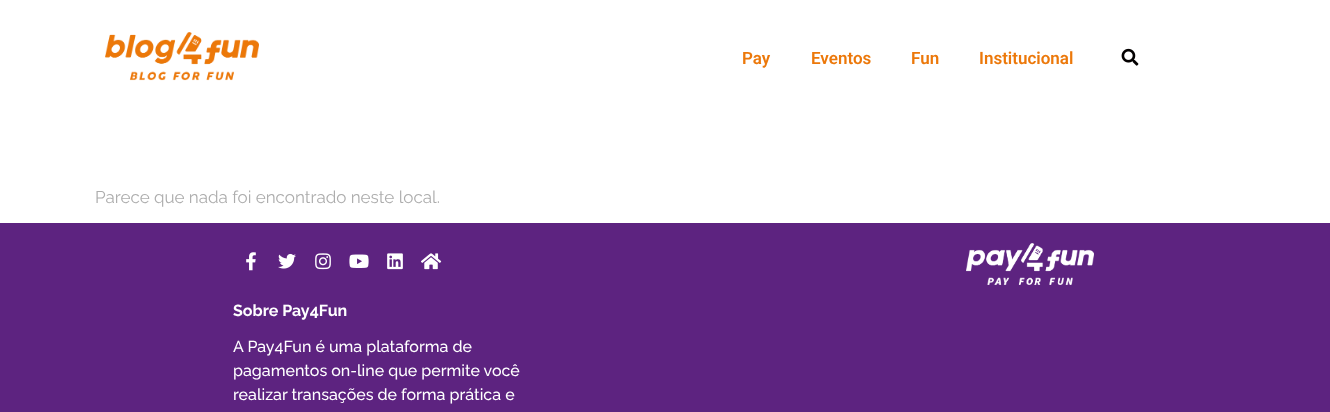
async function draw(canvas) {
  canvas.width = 1330
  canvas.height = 412
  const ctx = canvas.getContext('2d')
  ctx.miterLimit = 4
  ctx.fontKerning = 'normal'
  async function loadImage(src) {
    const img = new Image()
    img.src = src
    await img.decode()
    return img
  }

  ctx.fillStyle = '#fff'
  ctx.fillRect(0, 0, 1330, 412)
  ctx.drawImage(await loadImage('image0.png'), 105, 32, 154, 49)
  ctx.font = '600 17px Roboto'
  ctx.fillStyle = '#ec780a'
  ctx.fillText('Pay', 742, 64)
  ctx.fillText('Eventos', 811, 64)
  ctx.fillText('Fun', 911, 64)
  ctx.fillText('Institucional', 979, 64)
  ctx.drawImage(await loadImage('image1.png'), 1121, 48, 18, 18)
  ctx.font = '17px Raleway'
  ctx.fillStyle = '#adadad'
  ctx.fillText('Parece que nada foi encontrado neste local.', 95, 203)
  ctx.fillStyle = '#5d2380'
  ctx.fillRect(0, 223, 1330, 189)
  ctx.drawImage(await loadImage('image2.png'), 966, 243, 128, 42)
  ctx.drawImage(await loadImage('image3.png'), 246, 252, 10, 19)
  ctx.drawImage(await loadImage('image4.png'), 278, 253, 18, 16)
  ctx.drawImage(await loadImage('image5.png'), 315, 253, 16, 17)
  ctx.drawImage(await loadImage('image6.png'), 349, 254, 20, 14)
  ctx.drawImage(await loadImage('image7.png'), 387, 253, 16, 17)
  ctx.drawImage(await loadImage('image8.png'), 421, 253, 21, 17)
  ctx.font = 'bold 16px Raleway'
  ctx.fillStyle = '#fff'
  ctx.fillText('Sobre Pay4Fun', 233, 316)
  ctx.font = '500 16px Raleway'
  ctx.fillText('A Pay4Fun é uma plataforma de', 233, 352)
  ctx.fillText('pagamentos on-line que permite você', 233, 376)
  ctx.fillText('realizar transações de forma prática e', 233, 400)
}

draw(document.querySelector('canvas'))
